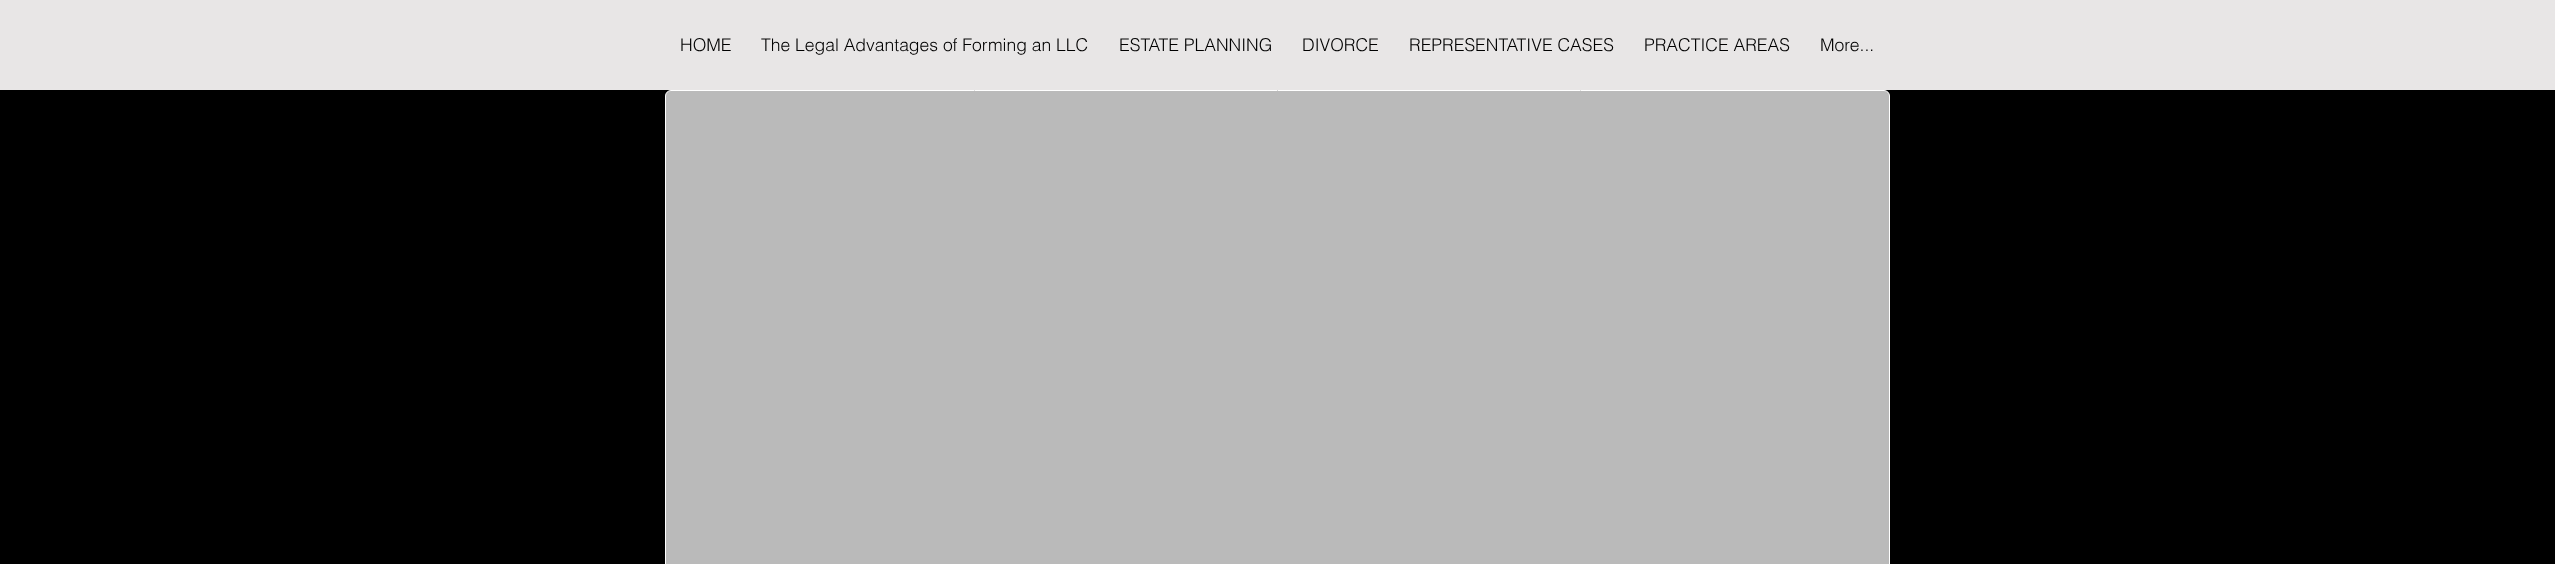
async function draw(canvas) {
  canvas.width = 2555
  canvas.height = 564
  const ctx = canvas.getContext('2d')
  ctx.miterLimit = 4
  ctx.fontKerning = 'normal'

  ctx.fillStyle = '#000'
  ctx.fillRect(0, 0, 2555, 564)
  ctx.fillStyle = '#e8e6e6'
  ctx.fillRect(0, 0, 2555, 90)
  ctx.font = '300 17.5px helvetica'
  ctx.fillStyle = '#000'
  ctx.fillText('HOME', 680, 51)
  ctx.fillText('The Legal Advantages of Forming an LLC', 761, 51)
  ctx.fillText('ESTATE PLANNING', 1119, 51)
  ctx.fillText('DIVORCE', 1302, 51)
  ctx.fillText('REPRESENTATIVE CASES', 1409, 51)
  ctx.fillText('PRACTICE AREAS', 1644, 51)
  ctx.fillText('More...', 1820, 51)
  ctx.fillStyle = '#bababa'
  ctx.beginPath()
  ctx.roundRect(665.5, 90.5, 1224, 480, 5.5)
  ctx.fill()
  ctx.strokeStyle = '#fff'
  ctx.stroke()
}

draw(document.querySelector('canvas'))
